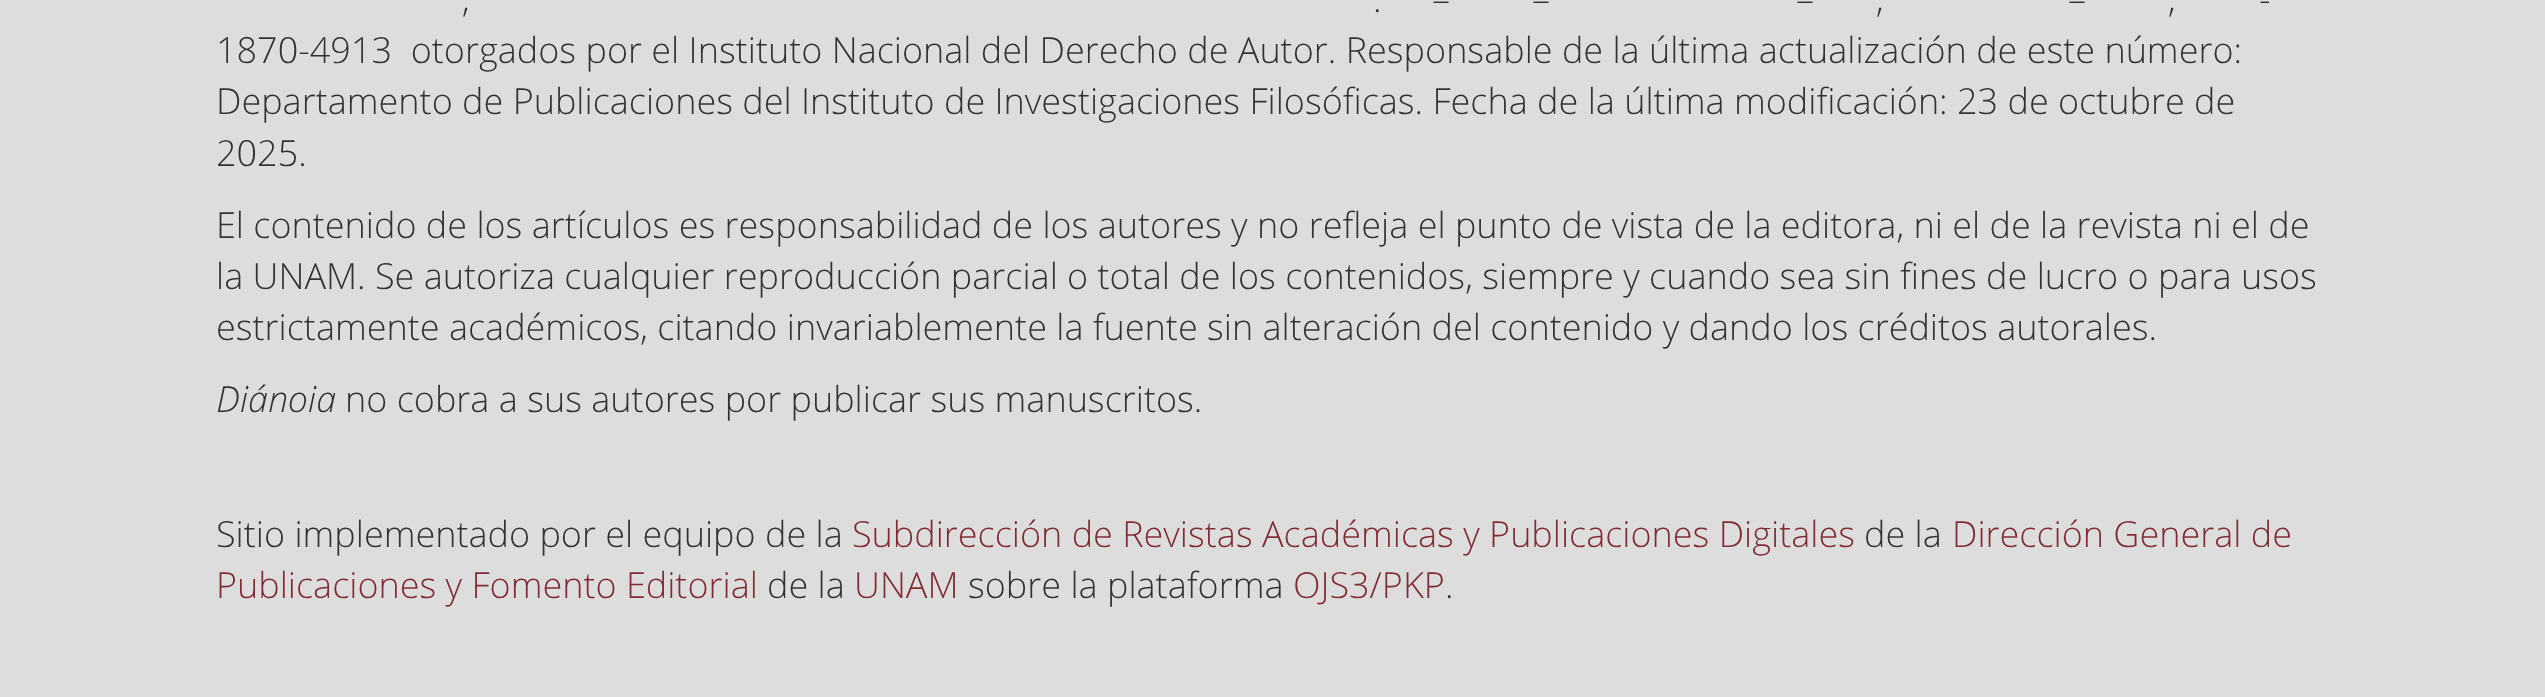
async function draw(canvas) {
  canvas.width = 2545
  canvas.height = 697
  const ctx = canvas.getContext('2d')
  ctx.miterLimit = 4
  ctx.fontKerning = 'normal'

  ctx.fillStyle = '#ddd'
  ctx.fillRect(0, 0, 2545, 697)
  ctx.font = '300 36px Open Sans'
  ctx.fillStyle = '#333'
  ctx.fillText('–', 1432, 12)
  ctx.fillText('–', 1532, 12)
  ctx.fillText('–', 1796, 12)
  ctx.fillText('–', 2068, 12)
  ctx.fillText('-', 2259, 12)
  ctx.fillText(',', 462, 12)
  ctx.fillText('.', 1373, 12)
  ctx.fillText(',', 1876, 12)
  ctx.fillText(',', 2168, 12)
  ctx.fillText('1870-4913  otorgados por el Instituto Nacional del Derecho de Autor. Responsable de la última actualización de este número:', 216, 63)
  ctx.fillText('Departamento de Publicaciones del Instituto de Investigaciones Filosóficas. Fecha de la última modificación: 23 de octubre de', 216, 114)
  ctx.fillText('2025.', 216, 166)
  ctx.fillText('El contenido de los artículos es responsabilidad de los autores y no refleja el punto de vista de la editora, ni el de la revista ni el de', 216, 238)
  ctx.fillText('la UNAM. Se autoriza cualquier reproducción parcial o total de los contenidos, siempre y cuando sea sin fines de lucro o para usos', 216, 289)
  ctx.fillText('estrictamente académicos, citando invariablemente la fuente sin alteración del contenido y dando los créditos autorales.', 216, 340)
  ctx.font = 'italic 300 36px Open Sans'
  ctx.fillText('Diánoia', 216, 412)
  ctx.font = '300 36px Open Sans'
  ctx.fillText('no cobra a sus autores por publicar sus manuscritos.', 345, 412)
  ctx.fillText('Sitio implementado por el equipo de la', 216, 547)
  ctx.fillStyle = '#812c35'
  ctx.fillText('Subdirección de Revistas Académicas y Publicaciones Digitales', 852, 547)
  ctx.fillStyle = '#333'
  ctx.fillText('de la', 1864, 547)
  ctx.fillStyle = '#812c35'
  ctx.fillText('Dirección General de', 1952, 547)
  ctx.fillText('Publicaciones y Fomento Editorial', 216, 598)
  ctx.fillStyle = '#333'
  ctx.fillText('de la', 767, 598)
  ctx.fillStyle = '#812c35'
  ctx.fillText('UNAM', 854, 598)
  ctx.fillStyle = '#333'
  ctx.fillText('sobre la plataforma', 968, 598)
  ctx.fillStyle = '#812c35'
  ctx.fillText('OJS3/PKP', 1293, 598)
  ctx.fillStyle = '#333'
  ctx.fillText('.', 1445, 598)
}

draw(document.querySelector('canvas'))
